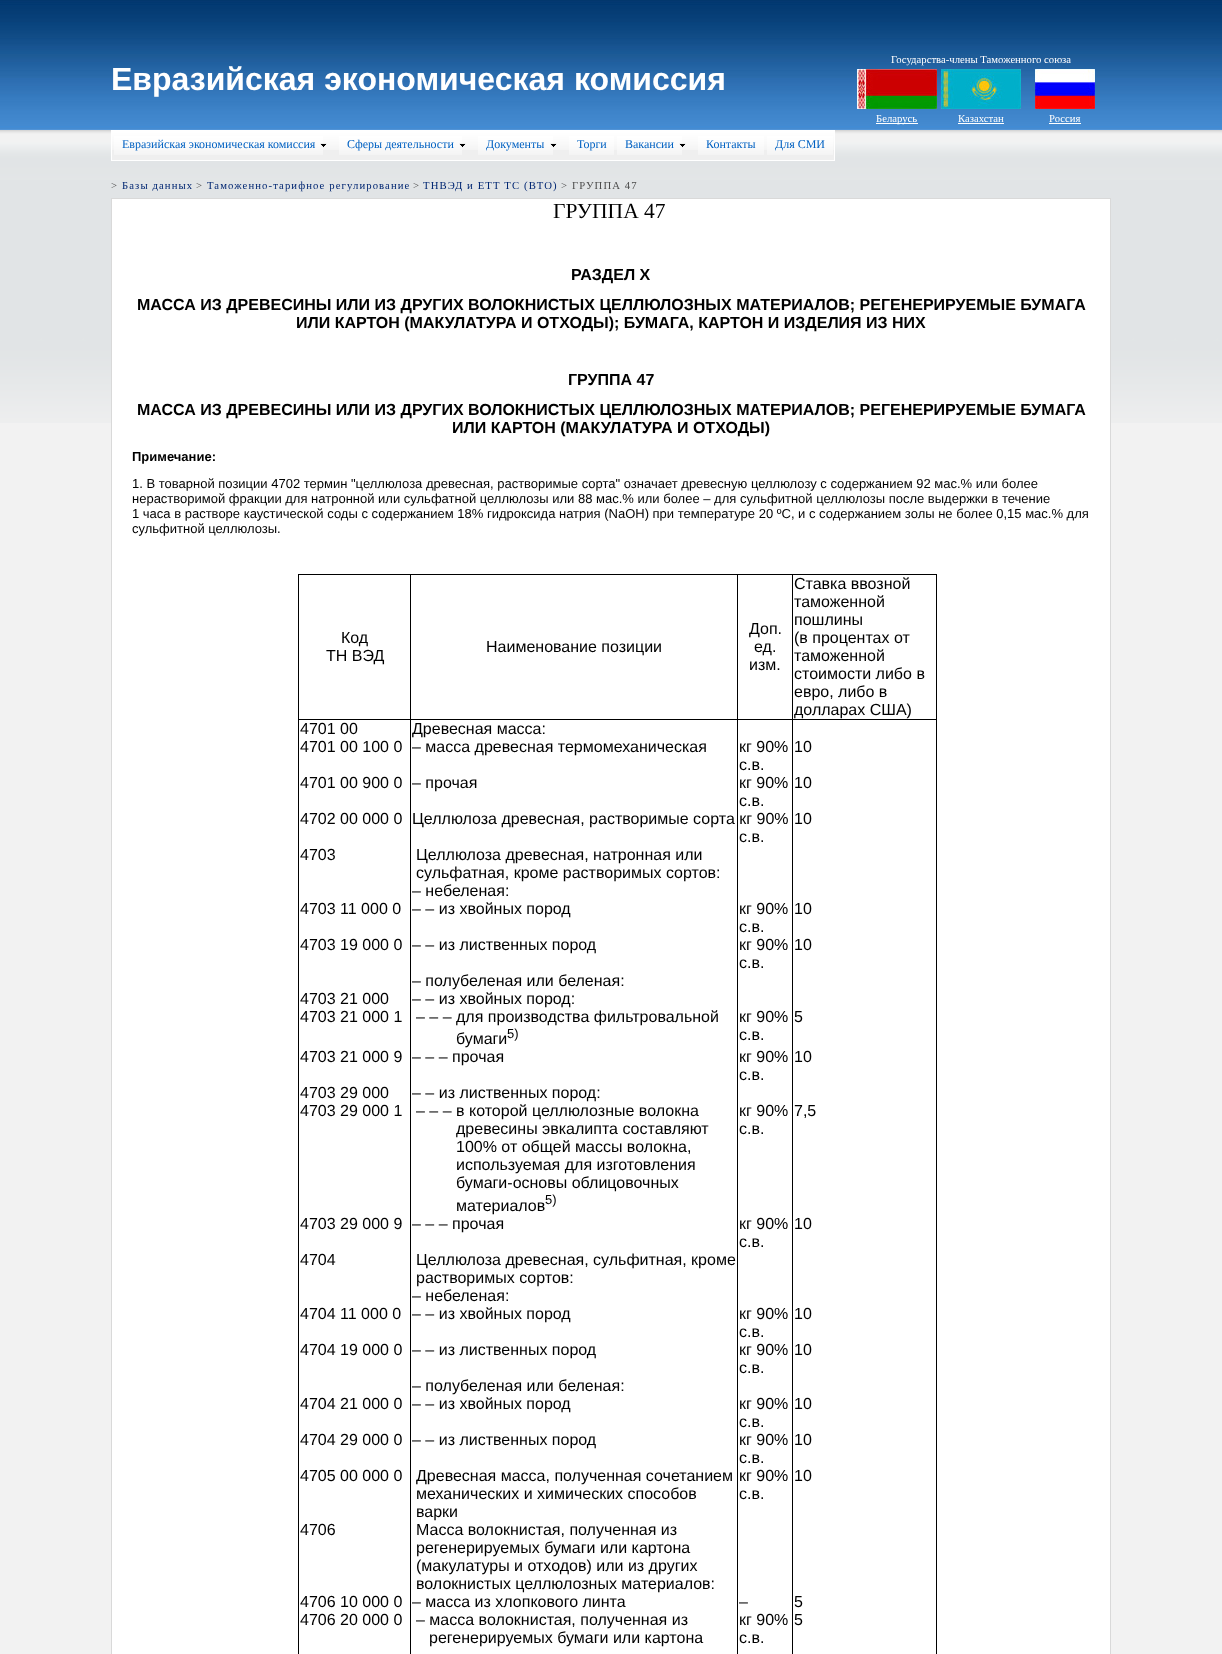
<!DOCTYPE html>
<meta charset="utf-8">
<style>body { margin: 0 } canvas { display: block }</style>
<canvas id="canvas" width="1222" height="1654"></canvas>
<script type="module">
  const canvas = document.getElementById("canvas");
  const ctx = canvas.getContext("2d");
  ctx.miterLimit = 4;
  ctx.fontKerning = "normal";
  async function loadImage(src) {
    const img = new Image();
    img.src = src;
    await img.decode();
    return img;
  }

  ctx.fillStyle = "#ffffff";
  ctx.fillRect(0, 0, 1222, 1654);
  ctx.drawImage(await loadImage("img1.png"), 0, 0, 1222, 130);
  ctx.font = "bold 32px Liberation Sans";
  ctx.fillText("Евразийская экономическая комиссия", 111, 90);
  ctx.font = "10.7px Liberation Serif";
  ctx.fillText("Государства-члены Таможенного союза", 891, 63);
  ctx.drawImage(await loadImage("img2.png"), 857, 69, 80, 40);
  ctx.drawImage(await loadImage("img3.png"), 941, 69, 80, 40);
  ctx.drawImage(await loadImage("img4.png"), 1035, 69, 60, 40);
  ctx.fillRect(876, 123, 42, 1);
  ctx.fillText("Беларусь", 876, 122);
  ctx.fillText("Казахстан", 958, 122);
  ctx.fillRect(958, 123, 46, 1);
  ctx.fillText("Россия", 1049, 122);
  ctx.fillRect(1049, 123, 32, 1);
  ctx.drawImage(await loadImage("img5.png"), 0, 130, 1222, 50);
  ctx.strokeStyle = "#ffffff";
  ctx.strokeRect(111.5, 130.5, 723, 30);
  ctx.fillStyle = "#efefef";
  ctx.fillRect(112, 150, 722, 10);
  ctx.drawImage(await loadImage("img6.png"), 112, 131, 225, 19);
  ctx.drawImage(await loadImage("img7.png"), 114, 136, 209, 19);
  ctx.font = "12px Liberation Serif";
  ctx.fillStyle = "#0161c2";
  ctx.fillText("Евразийская экономическая комиссия", 122, 148);
  ctx.drawImage(await loadImage("img8.png"), 320, 143, 7, 5);
  ctx.drawImage(await loadImage("img9.png"), 337, 131, 139, 19);
  ctx.drawImage(await loadImage("img10.png"), 339, 136, 123, 19);
  ctx.fillText("Сферы деятельности", 347, 148);
  ctx.drawImage(await loadImage("img8.png"), 459, 143, 7, 5);
  ctx.drawImage(await loadImage("img11.png"), 476, 131, 91, 19);
  ctx.drawImage(await loadImage("img12.png"), 478, 136, 75, 19);
  ctx.fillText("Документы", 486, 148);
  ctx.drawImage(await loadImage("img8.png"), 550, 143, 7, 5);
  ctx.drawImage(await loadImage("img13.png"), 567, 131, 48, 19);
  ctx.drawImage(await loadImage("img14.png"), 569, 136, 45, 19);
  ctx.fillText("Торги", 577, 148);
  ctx.drawImage(await loadImage("img15.png"), 615, 131, 81, 19);
  ctx.drawImage(await loadImage("img16.png"), 617, 136, 65, 19);
  ctx.fillText("Вакансии", 625, 148);
  ctx.drawImage(await loadImage("img8.png"), 679, 143, 7, 5);
  ctx.drawImage(await loadImage("img17.png"), 696, 131, 69, 19);
  ctx.drawImage(await loadImage("img18.png"), 698, 136, 66, 19);
  ctx.fillText("Контакты", 706, 148);
  ctx.drawImage(await loadImage("img17.png"), 765, 131, 69, 19);
  ctx.drawImage(await loadImage("img18.png"), 767, 136, 66, 19);
  ctx.fillText("Для СМИ", 775, 148);
  ctx.fillStyle = "#f2f2f2";
  ctx.fillRect(0, 423, 1222, 1231);
  ctx.drawImage(await loadImage("img19.png"), 0, 180, 1222, 243);
  ctx.letterSpacing = "1.1px";
  ctx.font = "10.7px Liberation Serif";
  ctx.fillStyle = "#4c4c4c";
  ctx.fillText(">", 111, 189);
  ctx.fillStyle = "#002672";
  ctx.fillText("Базы данных", 122, 189);
  ctx.fillStyle = "#4c4c4c";
  ctx.fillText(">", 196, 189);
  ctx.fillStyle = "#002672";
  ctx.fillText("Таможенно-тарифное регулирование", 207, 189);
  ctx.fillStyle = "#4c4c4c";
  ctx.fillText(">", 413, 189);
  ctx.fillStyle = "#002672";
  ctx.fillText("ТНВЭД и ЕТТ ТС (ВТО)", 423, 189);
  ctx.fillStyle = "#4c4c4c";
  ctx.fillText("> ГРУППА 47", 561, 189);
  ctx.fillStyle = "#ffffff";
  ctx.fillRect(112, 199, 998, 1455);
  ctx.fillStyle = "#d9d9d9";
  ctx.fillRect(111, 198, 1000, 1);
  ctx.fillRect(1110, 198, 1, 1456);
  ctx.fillRect(111, 198, 1, 1456);
  ctx.letterSpacing = "0px";
  ctx.font = "21.5px Liberation Serif";
  ctx.fillStyle = "#000000";
  ctx.fillText("ГРУППА 47", 553, 218);
  ctx.font = "bold 16px Liberation Sans";
  ctx.fillText("РАЗДЕЛ X", 571, 280);
  ctx.fillText("МАССА ИЗ ДРЕВЕСИНЫ ИЛИ ИЗ ДРУГИХ ВОЛОКНИСТЫХ ЦЕЛЛЮЛОЗHЫХ МАТЕРИАЛОВ; РЕГЕНЕРИРУЕМЫЕ БУМАГА", 137, 310);
  ctx.fillText("ИЛИ КАРТОН (МАКУЛАТУРА И ОТХОДЫ); БУМАГА, КАРТОН И ИЗДЕЛИЯ ИЗ НИХ", 296, 328);
  ctx.fillText("ГРУППА 47", 568, 385);
  ctx.fillText("МАССА ИЗ ДРЕВЕСИНЫ ИЛИ ИЗ ДРУГИХ ВОЛОКНИСТЫХ ЦЕЛЛЮЛОЗHЫХ МАТЕРИАЛОВ; РЕГЕНЕРИРУЕМЫЕ БУМАГА", 137, 415);
  ctx.fillText("ИЛИ КАРТОH (МАКУЛАТУРА И ОТХОДЫ)", 452, 433);
  ctx.font = "bold 13px Liberation Sans";
  ctx.fillText("Примечание:", 132, 461);
  ctx.font = "13px Liberation Sans";
  ctx.fillText("1. В товарной позиции 4702 термин \"целлюлоза древесная, растворимые сорта\" означает древесную целлюлозу с содержанием 92 мас.% или более", 132, 488);
  ctx.fillText("нерастворимой фракции для натронной или сульфатной целлюлозы или 88 мас.% или более – для сульфитной целлюлозы после выдержки в течение", 132, 503);
  ctx.fillText("1 часа в растворе каустической соды с содержанием 18% гидроксида натрия (NaOH) при температуре 20 ºС, и с содержанием золы не более 0,15 мас.% для", 132, 518);
  ctx.fillText("сульфитной целлюлозы.", 132, 533);
  ctx.fillRect(298, 574, 639, 1);
  ctx.fillRect(936, 719, 1, 935);
  ctx.fillRect(936, 574, 1, 146);
  ctx.fillRect(792, 719, 1, 935);
  ctx.fillRect(792, 719, 145, 1);
  ctx.fillRect(792, 574, 1, 146);
  ctx.fillRect(737, 719, 1, 935);
  ctx.fillRect(737, 719, 56, 1);
  ctx.fillRect(737, 574, 1, 146);
  ctx.fillRect(410, 719, 1, 935);
  ctx.fillRect(410, 719, 328, 1);
  ctx.fillRect(410, 574, 1, 146);
  ctx.fillRect(298, 719, 1, 935);
  ctx.fillRect(298, 719, 113, 1);
  ctx.fillRect(298, 574, 1, 146);
  ctx.font = "16px Liberation Sans";
  ctx.fillText("Код", 341, 643);
  ctx.fillText("ТН ВЭД", 326, 661);
  ctx.fillText("Наименование позиции", 486, 652);
  ctx.fillText("Доп.", 749, 634);
  ctx.fillText("ед.", 754, 652);
  ctx.fillText("изм.", 749, 670);
  ctx.fillText("Ставка ввозной", 794, 589);
  ctx.fillText("таможенной", 794, 607);
  ctx.fillText("пошлины", 794, 625);
  ctx.fillText("(в процентах от", 794, 643);
  ctx.fillText("таможенной", 794, 661);
  ctx.fillText("стоимости либо в", 794, 679);
  ctx.fillText("евро, либо в", 794, 697);
  ctx.fillText("долларах США)", 794, 715);
  ctx.fillText("4701 00", 300, 734);
  ctx.fillText("Древесная масса:", 412, 734);
  ctx.fillText("4701 00 100 0", 300, 752);
  ctx.fillText("– масса древесная термомеханическая", 412, 752);
  ctx.fillText("кг 90%", 739, 752);
  ctx.fillText("с.в.", 739, 770);
  ctx.fillText("10", 794, 752);
  ctx.fillText("4701 00 900 0", 300, 788);
  ctx.fillText("– прочая", 412, 788);
  ctx.fillText("кг 90%", 739, 788);
  ctx.fillText("с.в.", 739, 806);
  ctx.fillText("10", 794, 788);
  ctx.fillText("4702 00 000 0", 300, 824);
  ctx.fillText("Целлюлоза древесная, растворимые сорта кг 90%", 412, 824);
  ctx.fillText("10", 794, 824);
  ctx.fillText("с.в.", 739, 842);
  ctx.fillText("4703", 300, 860);
  ctx.fillText("Целлюлоза древесная, натронная или", 416, 860);
  ctx.fillText("сульфатная, кроме растворимых сортов:", 416, 878);
  ctx.fillText("– небеленая:", 412, 896);
  ctx.fillText("4703 11 000 0", 300, 914);
  ctx.fillText("– – из хвойных пород", 412, 914);
  ctx.fillText("кг 90%", 739, 914);
  ctx.fillText("с.в.", 739, 932);
  ctx.fillText("10", 794, 914);
  ctx.fillText("4703 19 000 0", 300, 950);
  ctx.fillText("– – из лиственных пород", 412, 950);
  ctx.fillText("кг 90%", 739, 950);
  ctx.fillText("с.в.", 739, 968);
  ctx.fillText("10", 794, 950);
  ctx.fillText("– полубеленая или беленая:", 412, 986);
  ctx.fillText("4703 21 000", 300, 1004);
  ctx.fillText("– – из хвойных пород:", 412, 1004);
  ctx.fillText("4703 21 000 1", 300, 1022);
  ctx.fillText("– – – для производства фильтровальной", 416, 1022);
  ctx.fillText("бумаги", 456, 1044);
  ctx.font = "13px Liberation Sans";
  ctx.fillText("5)", 507, 1038);
  ctx.font = "16px Liberation Sans";
  ctx.fillText("кг 90%", 739, 1022);
  ctx.fillText("с.в.", 739, 1040);
  ctx.fillText("5", 794, 1022);
  ctx.fillText("4703 21 000 9", 300, 1062);
  ctx.fillText("– – – прочая", 412, 1062);
  ctx.fillText("кг 90%", 739, 1062);
  ctx.fillText("с.в.", 739, 1080);
  ctx.fillText("10", 794, 1062);
  ctx.fillText("4703 29 000", 300, 1098);
  ctx.fillText("– – из лиственных пород:", 412, 1098);
  ctx.fillText("4703 29 000 1", 300, 1116);
  ctx.fillText("– – – в которой целлюлозные волокна", 416, 1116);
  ctx.fillText("древесины эвкалипта составляют", 456, 1134);
  ctx.fillText("100% от общей массы волокна,", 456, 1152);
  ctx.fillText("используемая для изготовления", 456, 1170);
  ctx.fillText("бумаги-основы облицовочных", 456, 1188);
  ctx.font = "13px Liberation Sans";
  ctx.fillText("5)", 545, 1204);
  ctx.font = "16px Liberation Sans";
  ctx.fillText("материалов", 456, 1211);
  ctx.fillText("кг 90%", 739, 1116);
  ctx.fillText("с.в.", 739, 1134);
  ctx.fillText("7,5", 794, 1116);
  ctx.fillText("4703 29 000 9", 300, 1229);
  ctx.fillText("– – – прочая", 412, 1229);
  ctx.fillText("кг 90%", 739, 1229);
  ctx.fillText("с.в.", 739, 1247);
  ctx.fillText("10", 794, 1229);
  ctx.fillText("4704", 300, 1265);
  ctx.fillText("Целлюлоза древесная, сульфитная, кроме", 416, 1265);
  ctx.fillText("растворимых сортов:", 416, 1283);
  ctx.fillText("– небеленая:", 412, 1301);
  ctx.fillText("4704 11 000 0", 300, 1319);
  ctx.fillText("– – из хвойных пород", 412, 1319);
  ctx.fillText("кг 90%", 739, 1319);
  ctx.fillText("с.в.", 739, 1337);
  ctx.fillText("10", 794, 1319);
  ctx.fillText("4704 19 000 0", 300, 1355);
  ctx.fillText("– – из лиственных пород", 412, 1355);
  ctx.fillText("кг 90%", 739, 1355);
  ctx.fillText("с.в.", 739, 1373);
  ctx.fillText("10", 794, 1355);
  ctx.fillText("– полубеленая или беленая:", 412, 1391);
  ctx.fillText("4704 21 000 0", 300, 1409);
  ctx.fillText("– – из хвойных пород", 412, 1409);
  ctx.fillText("кг 90%", 739, 1409);
  ctx.fillText("с.в.", 739, 1427);
  ctx.fillText("10", 794, 1409);
  ctx.fillText("4704 29 000 0", 300, 1445);
  ctx.fillText("– – из лиственных пород", 412, 1445);
  ctx.fillText("кг 90%", 739, 1445);
  ctx.fillText("с.в.", 739, 1463);
  ctx.fillText("10", 794, 1445);
  ctx.fillText("4705 00 000 0", 300, 1481);
  ctx.fillText("Древесная масса, полученная сочетанием", 416, 1481);
  ctx.fillText("механических и химических способов", 416, 1499);
  ctx.fillText("варки", 416, 1517);
  ctx.fillText("кг 90%", 739, 1481);
  ctx.fillText("с.в.", 739, 1499);
  ctx.fillText("10", 794, 1481);
  ctx.fillText("4706", 300, 1535);
  ctx.fillText("Масса волокнистая, полученная из", 416, 1535);
  ctx.fillText("регенерируемых бумаги или картона", 416, 1553);
  ctx.fillText("(макулатуры и отходов) или из других", 416, 1571);
  ctx.fillText("волокнистых целлюлозных материалов:", 416, 1589);
  ctx.fillText("4706 10 000 0", 300, 1607);
  ctx.fillText("– масса из хлопкового линта", 412, 1607);
  ctx.fillText("–", 739, 1607);
  ctx.fillText("5", 794, 1607);
  ctx.fillText("4706 20 000 0", 300, 1625);
  ctx.fillText("– масса волокнистая, полученная из", 416, 1625);
  ctx.fillText("регенерируемых бумаги или картона", 429, 1643);
  ctx.fillText("кг 90%", 739, 1625);
  ctx.fillText("с.в.", 739, 1643);
  ctx.fillText("5", 794, 1625);
</script>
